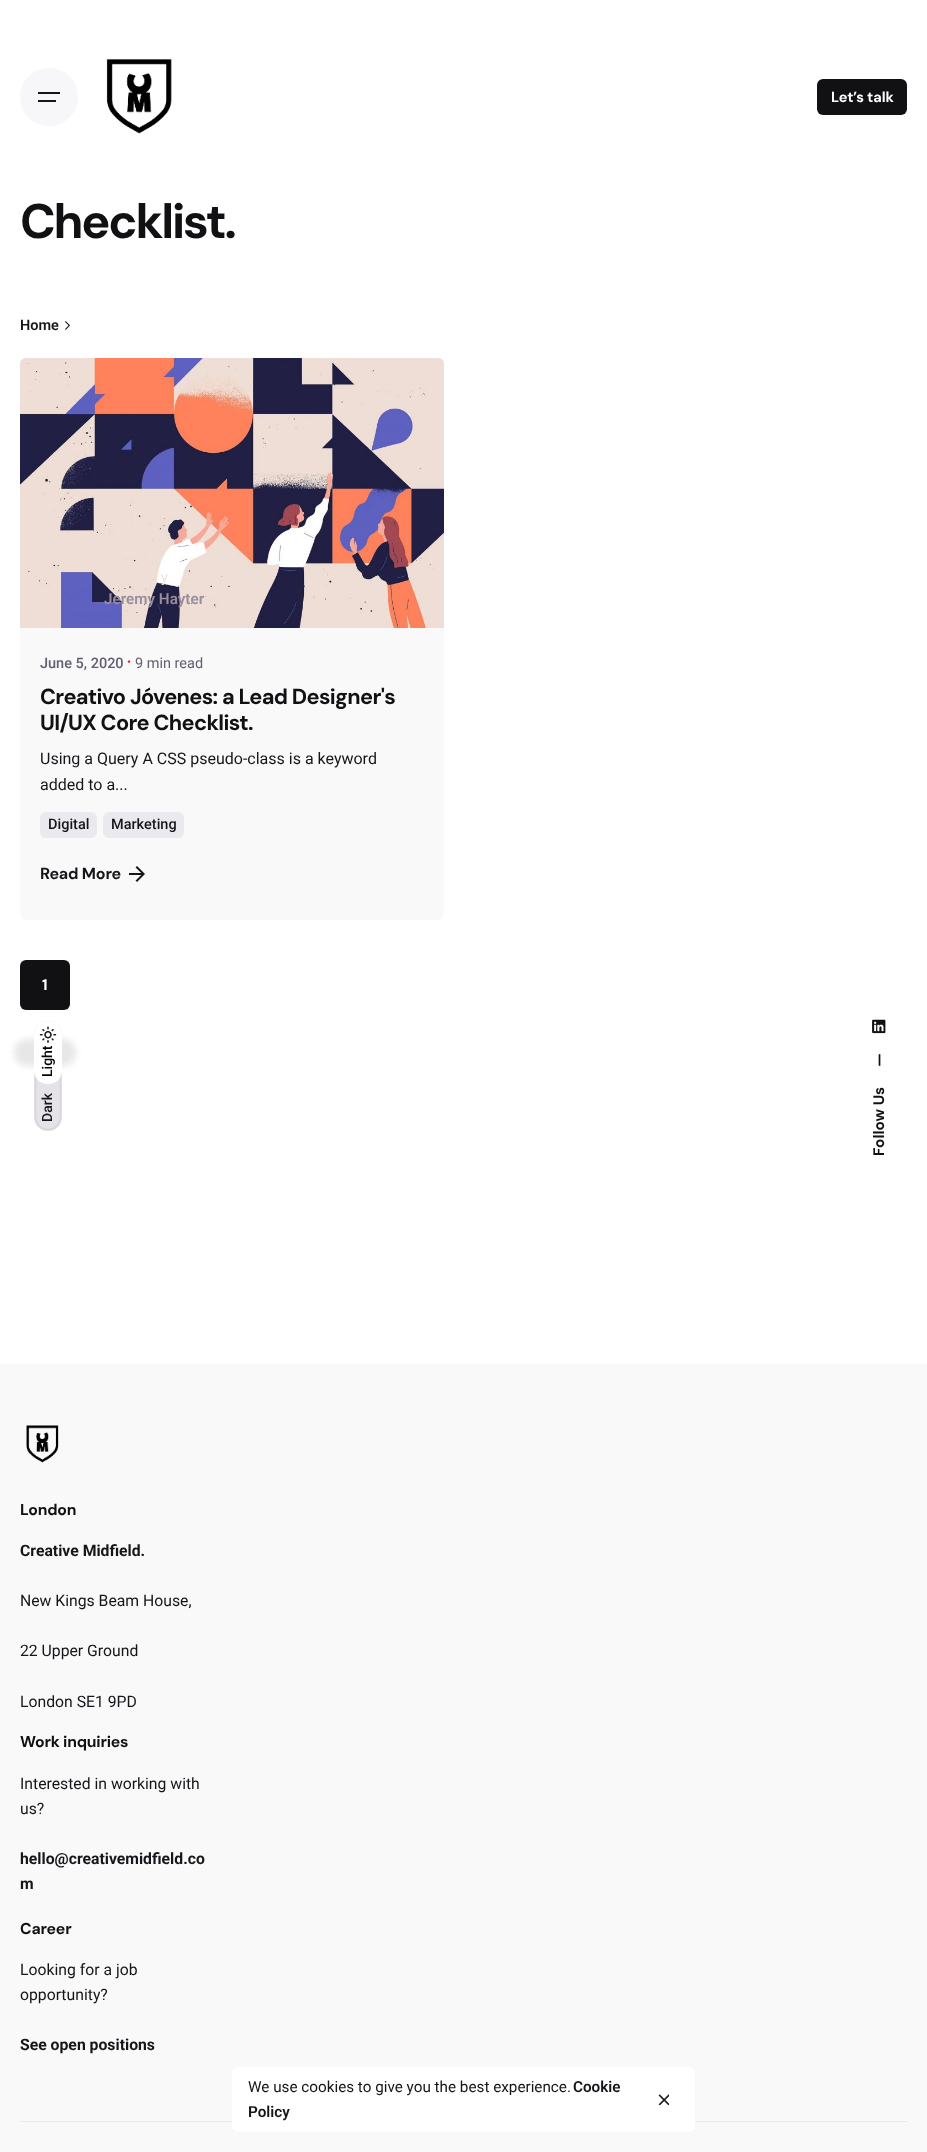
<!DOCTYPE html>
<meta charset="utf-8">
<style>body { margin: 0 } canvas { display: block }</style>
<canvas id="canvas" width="927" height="2152"></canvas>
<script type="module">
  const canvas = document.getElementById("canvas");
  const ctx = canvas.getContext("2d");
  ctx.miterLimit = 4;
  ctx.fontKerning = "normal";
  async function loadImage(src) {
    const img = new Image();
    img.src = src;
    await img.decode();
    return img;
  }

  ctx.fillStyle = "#ffffff";
  ctx.fillRect(0, 0, 927, 2152);
  ctx.fillStyle = "#f7f6f8";
  ctx.beginPath();
  ctx.arc(49, 97, 29, 0, Math.PI * 2);
  ctx.fill();
  ctx.fillStyle = "#161519";
  ctx.fillRect(38, 92, 22, 2);
  ctx.fillRect(38, 100, 18, 2);
  ctx.drawImage(await loadImage("img1.png"), 106, 59, 66, 75);
  ctx.fillStyle = "#111013";
  ctx.beginPath();
  ctx.roundRect(817, 79, 90, 36, 6);
  ctx.fill();
  ctx.letterSpacing = "-0.1px";
  ctx.font = "bold 14.5px DM Sans";
  ctx.fillStyle = "#ffffff";
  ctx.fillText("Let’s talk", 831, 102);
  ctx.letterSpacing = "-2.25px";
  ctx.font = "bold 48.5px DM Sans";
  ctx.fillStyle = "#111013";
  ctx.fillText("Checklist.", 20, 238);
  ctx.letterSpacing = "0px";
  ctx.font = "600 14.5px Roboto";
  ctx.fillStyle = "#161519";
  ctx.fillText("Home", 20, 330);
  ctx.drawImage(await loadImage("img2.png"), 65, 321, 5, 9);
  ctx.drawImage(await loadImage("img3.png"), 20, 358, 424, 270);
  ctx.font = "14.5px Roboto";
  ctx.fillStyle = "#efe1da";
  ctx.fillText("y", 161, 582);
  ctx.font = "600 15.25px Roboto";
  ctx.fillStyle = "#988e9c";
  ctx.fillText("Jeremy Hayter", 104, 604);
  ctx.fillStyle = "#f9f9fa";
  ctx.beginPath();
  ctx.roundRect(20, 628, 424, 292, [0, 0, 6, 6]);
  ctx.fill();
  ctx.font = "500 14.5px Roboto";
  ctx.fillStyle = "#635d6f";
  ctx.fillText("June 5, 2020", 40, 668);
  ctx.font = "12px Roboto";
  ctx.fillStyle = "#dc2828";
  ctx.fillText("•", 127, 666);
  ctx.font = "14.5px Roboto";
  ctx.fillStyle = "#635d6f";
  ctx.fillText("9 min read", 135, 668);
  ctx.letterSpacing = "-0.65px";
  ctx.font = "bold 21.7px DM Sans";
  ctx.fillStyle = "#111013";
  ctx.fillText("Creativo Jóvenes: a Lead Designer's", 40, 704);
  ctx.fillText("UI/UX Core Checklist.", 40, 730);
  ctx.letterSpacing = "0px";
  ctx.font = "16px Roboto";
  ctx.fillStyle = "#161519";
  ctx.fillText("Using a Query A CSS pseudo-class is a keyword", 40, 764);
  ctx.fillText("added to a...", 40, 790);
  ctx.fillStyle = "#eae9ed";
  ctx.beginPath();
  ctx.roundRect(40, 812, 57, 26, 6);
  ctx.fill();
  ctx.font = "500 14.5px Roboto";
  ctx.fillStyle = "#161519";
  ctx.fillText("Digital", 48, 829);
  ctx.fillStyle = "#eae9ed";
  ctx.beginPath();
  ctx.roundRect(103, 812, 81, 26, 6);
  ctx.fill();
  ctx.fillStyle = "#161519";
  ctx.fillText("Marketing", 111, 829);
  ctx.letterSpacing = "-0.2px";
  ctx.font = "bold 16px DM Sans";
  ctx.fillText("Read More", 40, 879);
  ctx.drawImage(await loadImage("img4.png"), 129, 866, 16, 16);
  ctx.fillStyle = "#111013";
  ctx.beginPath();
  ctx.roundRect(20, 960, 50, 50, 6);
  ctx.fill();
  ctx.letterSpacing = "0px";
  ctx.font = "bold 15.25px DM Sans";
  ctx.fillStyle = "#ffffff";
  ctx.fillText("1", 42, 990);
  ctx.fillStyle = "#faf9fa";
  ctx.fillRect(0, 1364, 927, 788);
  ctx.drawImage(await loadImage("img5.png"), 26, 1425, 33, 38);
  ctx.letterSpacing = "-0.2px";
  ctx.font = "bold 15.75px DM Sans";
  ctx.fillStyle = "#111013";
  ctx.fillText("London", 20, 1515);
  ctx.letterSpacing = "0px";
  ctx.font = "bold 15.75px Roboto";
  ctx.fillStyle = "#161519";
  ctx.fillText("Creative Midfield.", 20, 1556);
  ctx.font = "15.75px Roboto";
  ctx.fillText("New Kings Beam House,", 20, 1606);
  ctx.fillText("22 Upper Ground", 20, 1656);
  ctx.fillText("London SE1 9PD", 20, 1707);
  ctx.letterSpacing = "-0.2px";
  ctx.font = "bold 15.75px DM Sans";
  ctx.fillStyle = "#111013";
  ctx.fillText("Work inquiries", 20, 1747);
  ctx.letterSpacing = "0px";
  ctx.font = "15.75px Roboto";
  ctx.fillStyle = "#161519";
  ctx.fillText("Interested in working with", 20, 1789);
  ctx.fillText("us?", 20, 1814);
  ctx.font = "bold 15.75px Roboto";
  ctx.fillText("hello@creativemidfield.co", 20, 1864);
  ctx.fillText("m", 20, 1889);
  ctx.letterSpacing = "-0.2px";
  ctx.font = "bold 15.75px DM Sans";
  ctx.fillStyle = "#111013";
  ctx.fillText("Career", 20, 1934);
  ctx.letterSpacing = "0px";
  ctx.font = "15.75px Roboto";
  ctx.fillStyle = "#161519";
  ctx.fillText("Looking for a job", 20, 1975);
  ctx.fillText("opportunity?", 20, 2000);
  ctx.font = "bold 15.75px Roboto";
  ctx.fillText("See open positions", 20, 2050);
  ctx.fillStyle = "#ebe9ed";
  ctx.fillRect(20, 2121, 887, 1);
  ctx.fillStyle = "#e5e3e8";
  ctx.beginPath();
  ctx.moveTo(34, 1117);
  ctx.lineTo(34, 1035);
  ctx.bezierCurveTo(34, 1027, 40, 1021, 48, 1021);
  ctx.bezierCurveTo(56, 1021, 62, 1027, 62, 1035);
  ctx.lineTo(62, 1117);
  ctx.bezierCurveTo(62, 1125, 56, 1131, 48, 1131);
  ctx.bezierCurveTo(40, 1131, 34, 1125, 34, 1117);
  ctx.closePath();
  ctx.fill();
  ctx.beginPath();
  ctx.moveTo(35.5, 1117);
  ctx.lineTo(35.5, 1035);
  ctx.bezierCurveTo(35.5, 1028, 41, 1022.5, 48, 1022.5);
  ctx.bezierCurveTo(55, 1022.5, 60.5, 1028, 60.5, 1035);
  ctx.lineTo(60.5, 1117);
  ctx.bezierCurveTo(60.5, 1124, 55, 1129.5, 48, 1129.5);
  ctx.bezierCurveTo(41, 1129.5, 35.5, 1124, 35.5, 1117);
  ctx.closePath();
  ctx.strokeStyle = "#d9d7de";
  ctx.lineWidth = 2;
  ctx.stroke();
  ctx.fillStyle = "rgba(17, 16, 19, 0.05)";
  ctx.filter = "blur(3px)";
  ctx.beginPath();
  ctx.roundRect(14, 1039, 62, 27, 13.5);
  ctx.fill();
  ctx.filter = "none";
  ctx.filter = "blur(3px)";
  ctx.beginPath();
  ctx.roundRect(14, 1039, 62, 27, 13.5);
  ctx.fill();
  ctx.filter = "none";
  ctx.fillStyle = "#ffffff";
  ctx.beginPath();
  ctx.moveTo(34, 1071);
  ctx.lineTo(34, 1035);
  ctx.bezierCurveTo(34, 1027, 40, 1021, 48, 1021);
  ctx.bezierCurveTo(56, 1021, 62, 1027, 62, 1035);
  ctx.lineTo(62, 1071);
  ctx.bezierCurveTo(62, 1078, 56, 1084, 48, 1084);
  ctx.bezierCurveTo(40, 1084, 34, 1078, 34, 1071);
  ctx.closePath();
  ctx.fill();
  ctx.drawImage(await loadImage("img6.png"), 39, 1026, 18, 17);
  ctx.font = "500 14px Roboto";
  ctx.fillStyle = "#000000";
  ctx.save();
  ctx.translate(52, 1077);
  ctx.rotate(-90 * Math.PI / 180);
  ctx.fillText("Light", 0, 0);
  ctx.restore();
  ctx.fillStyle = "#161519";
  ctx.save();
  ctx.translate(52, 1122);
  ctx.rotate(-90 * Math.PI / 180);
  ctx.fillText("Dark", 0, 0);
  ctx.restore();
  ctx.drawImage(await loadImage("img7.png"), 872, 1019, 14, 15);
  ctx.font = "bold 15.25px DM Sans";
  ctx.fillStyle = "#111013";
  ctx.save();
  ctx.translate(884, 1067);
  ctx.rotate(-90 * Math.PI / 180);
  ctx.fillText("—", 0, 0);
  ctx.restore();
  ctx.save();
  ctx.translate(884, 1156);
  ctx.rotate(-90 * Math.PI / 180);
  ctx.fillText("Follow Us", 0, 0);
  ctx.restore();
  ctx.fillStyle = "#ffffff";
  ctx.beginPath();
  ctx.roundRect(232, 2067, 463, 65, 6);
  ctx.fill();
  ctx.font = "15.25px Roboto";
  ctx.fillStyle = "#161519";
  ctx.fillText("We use cookies to give you the best experience.", 248, 2092);
  ctx.font = "600 15.25px Roboto";
  ctx.fillText("Cookie", 573, 2092);
  ctx.fillText("Policy", 248, 2117);
  ctx.drawImage(await loadImage("img8.png"), 658, 2094, 11, 11);
</script>
